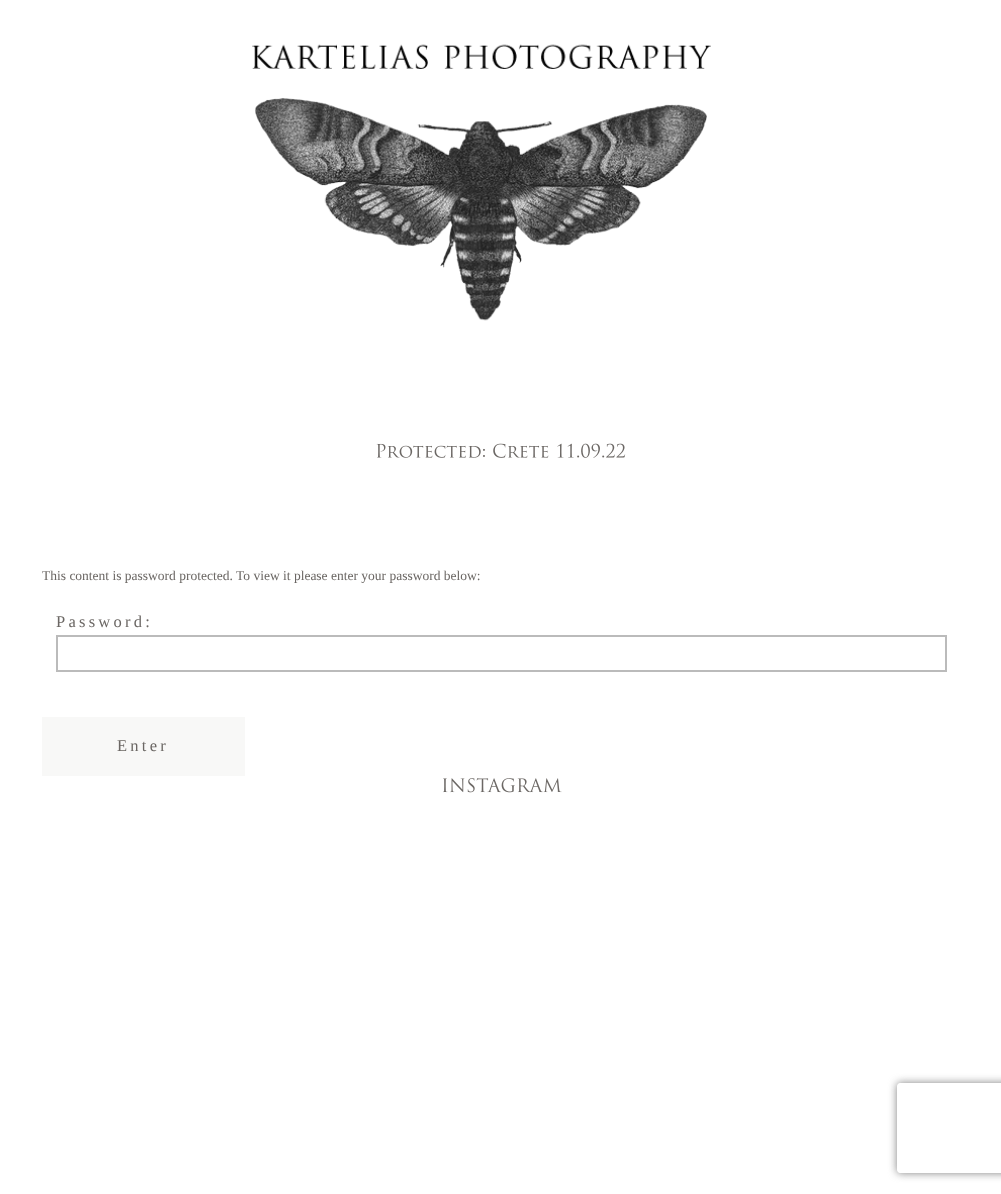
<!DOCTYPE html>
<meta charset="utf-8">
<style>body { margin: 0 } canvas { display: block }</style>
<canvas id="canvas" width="1001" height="1194"></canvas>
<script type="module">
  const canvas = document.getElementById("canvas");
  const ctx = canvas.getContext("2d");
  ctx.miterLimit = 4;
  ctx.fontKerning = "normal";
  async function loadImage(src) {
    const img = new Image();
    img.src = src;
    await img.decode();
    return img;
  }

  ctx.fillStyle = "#ffffff";
  ctx.fillRect(0, 0, 1001, 1194);
  ctx.drawImage(await loadImage("img1.png"), 252, 44, 459, 277);
  ctx.drawImage(await loadImage("img2.png"), 376, 443, 250, 15);
  ctx.font = "13.5px Liberation Serif";
  ctx.fillStyle = "#6b6764";
  ctx.fillText("This content is password protected. To view it please enter your password below:", 42, 580);
  ctx.letterSpacing = "3.25px";
  ctx.font = "16.5px Liberation Serif";
  ctx.fillText("Password:", 56, 627);
  ctx.strokeStyle = "#bbbbbb";
  ctx.lineWidth = 2;
  ctx.strokeRect(57, 636, 889, 35);
  ctx.fillStyle = "#f8f8f7";
  ctx.fillRect(42, 717, 203, 59);
  ctx.fillStyle = "#6b6764";
  ctx.fillText("Enter", 117, 751);
  ctx.drawImage(await loadImage("img3.png"), 443, 778, 119, 15);
  ctx.save();
  ctx.beginPath();
  ctx.moveTo(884, 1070);
  ctx.lineTo(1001, 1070);
  ctx.lineTo(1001, 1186);
  ctx.lineTo(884, 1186);
  ctx.closePath();
  ctx.moveTo(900, 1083);
  ctx.lineTo(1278, 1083);
  ctx.bezierCurveTo(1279.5, 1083, 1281, 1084.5, 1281, 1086);
  ctx.lineTo(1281, 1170);
  ctx.bezierCurveTo(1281, 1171.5, 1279.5, 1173, 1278, 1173);
  ctx.lineTo(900, 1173);
  ctx.bezierCurveTo(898.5, 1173, 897, 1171.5, 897, 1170);
  ctx.lineTo(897, 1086);
  ctx.bezierCurveTo(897, 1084.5, 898.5, 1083, 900, 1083);
  ctx.closePath();
  ctx.clip("evenodd");
  ctx.fillStyle = "#808080";
  ctx.filter = "blur(4px)";
  ctx.beginPath();
  ctx.roundRect(897, 1083, 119, 90, 3);
  ctx.fill();
  ctx.filter = "none";
  ctx.restore();
</script>
